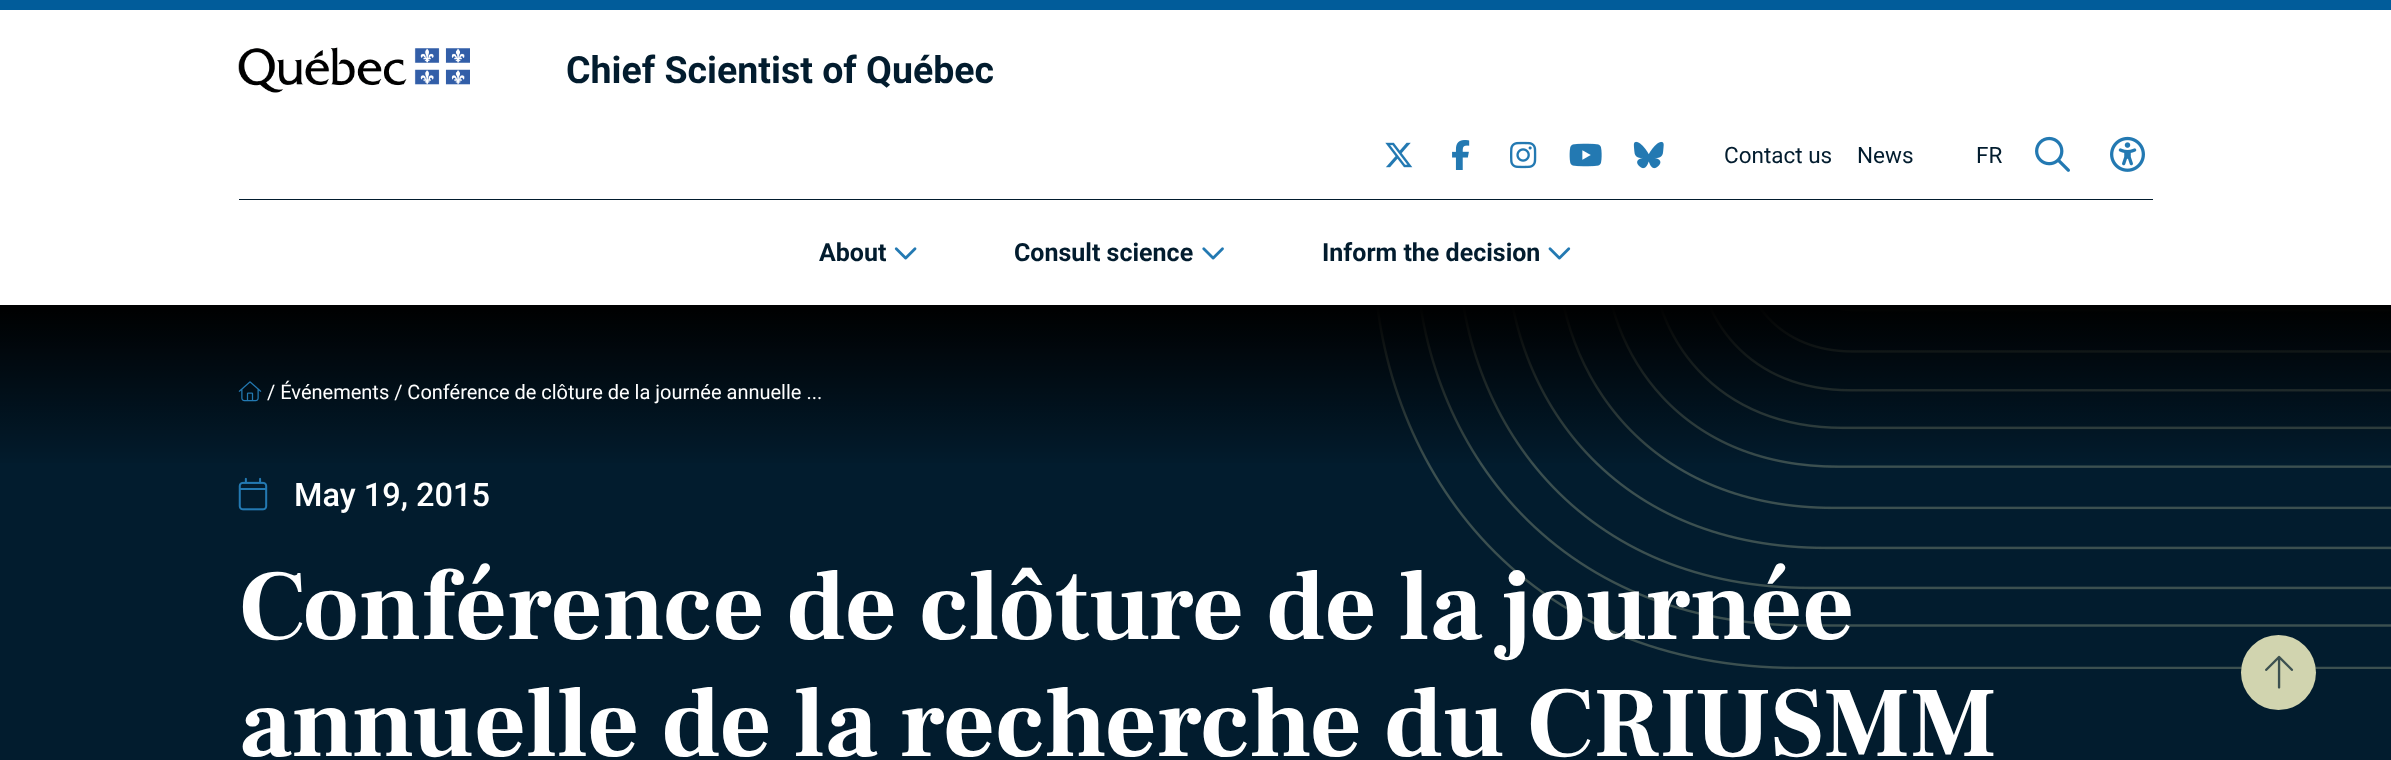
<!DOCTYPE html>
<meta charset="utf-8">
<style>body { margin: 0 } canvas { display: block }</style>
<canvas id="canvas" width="2391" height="760"></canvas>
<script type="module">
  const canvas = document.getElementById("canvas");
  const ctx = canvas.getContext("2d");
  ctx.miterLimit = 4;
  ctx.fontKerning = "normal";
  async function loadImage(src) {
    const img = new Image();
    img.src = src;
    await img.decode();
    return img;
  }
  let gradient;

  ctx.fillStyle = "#021c2e";
  ctx.fillRect(0, 0, 2391, 760);
  ctx.fillStyle = "#015c9a";
  ctx.fillRect(0, 0, 2391, 10);
  ctx.fillStyle = "#ffffff";
  ctx.fillRect(0, 10, 2391, 295);
  ctx.fillStyle = "#021c2e";
  ctx.fillRect(239, 199, 1914, 1);
  ctx.drawImage(await loadImage("img1.png"), 238, 47, 232, 46);
  ctx.font = "bold 37.5px Roboto";
  ctx.fillText("Chief Scientist of Québec", 566, 83);
  ctx.drawImage(await loadImage("img2.png"), 1385, 142, 28, 26);
  ctx.drawImage(await loadImage("img3.png"), 1452, 140, 18, 30);
  ctx.drawImage(await loadImage("img4.png"), 1510, 141, 27, 28);
  ctx.drawImage(await loadImage("img5.png"), 1569, 143, 33, 24);
  ctx.drawImage(await loadImage("img6.png"), 1633, 141, 31, 28);
  ctx.font = "22.5px Roboto";
  ctx.fillText("Contact us", 1724, 163);
  ctx.fillText("News", 1857, 163);
  ctx.fillText("FR", 1976, 163);
  ctx.drawImage(await loadImage("img7.png"), 2035, 136, 35, 36);
  ctx.drawImage(await loadImage("img8.png"), 2110, 136, 35, 36);
  ctx.font = "bold 25px Roboto";
  ctx.fillText("About", 819, 261);
  ctx.drawImage(await loadImage("img9.png"), 894, 247, 23, 13);
  ctx.fillText("Consult science", 1014, 261);
  ctx.drawImage(await loadImage("img10.png"), 1202, 247, 22, 13);
  ctx.fillText("Inform the decision", 1322, 261);
  ctx.drawImage(await loadImage("img11.png"), 1548, 247, 23, 13);
  ctx.drawImage(await loadImage("img12.png"), 1376, 306, 1015, 363);
  gradient = ctx.createLinearGradient(1196, 305, 1196, 468);
  gradient.addColorStop(0, "#000000");
  gradient.addColorStop(1, "rgba(0, 0, 0, 0)");
  ctx.fillStyle = gradient;
  ctx.fillRect(0, 305, 2391, 158);
  ctx.drawImage(await loadImage("img13.png"), 238, 381, 24, 21);
  ctx.font = "20px Roboto";
  ctx.fillStyle = "#ffffff";
  ctx.fillText("/ Événements / Conférence de clôture de la journée annuelle ...", 267, 399);
  ctx.drawImage(await loadImage("img14.png"), 238, 477, 30, 34);
  ctx.font = "500 32.5px Roboto";
  ctx.fillText("May 19, 2015", 294, 506);
  ctx.font = "bold 100px Frank Ruhl Libre";
  ctx.fillText("Conférence de clôture de la journée", 239, 639);
  ctx.fillText("annuelle de la recherche du CRIUSMM", 239, 756);
  ctx.fillStyle = "#d1d4af";
  ctx.beginPath();
  ctx.arc(2278.5, 672.5, 37.5, 0, Math.PI * 2);
  ctx.fill();
  ctx.drawImage(await loadImage("img15.png"), 2265, 655, 29, 34);
</script>
